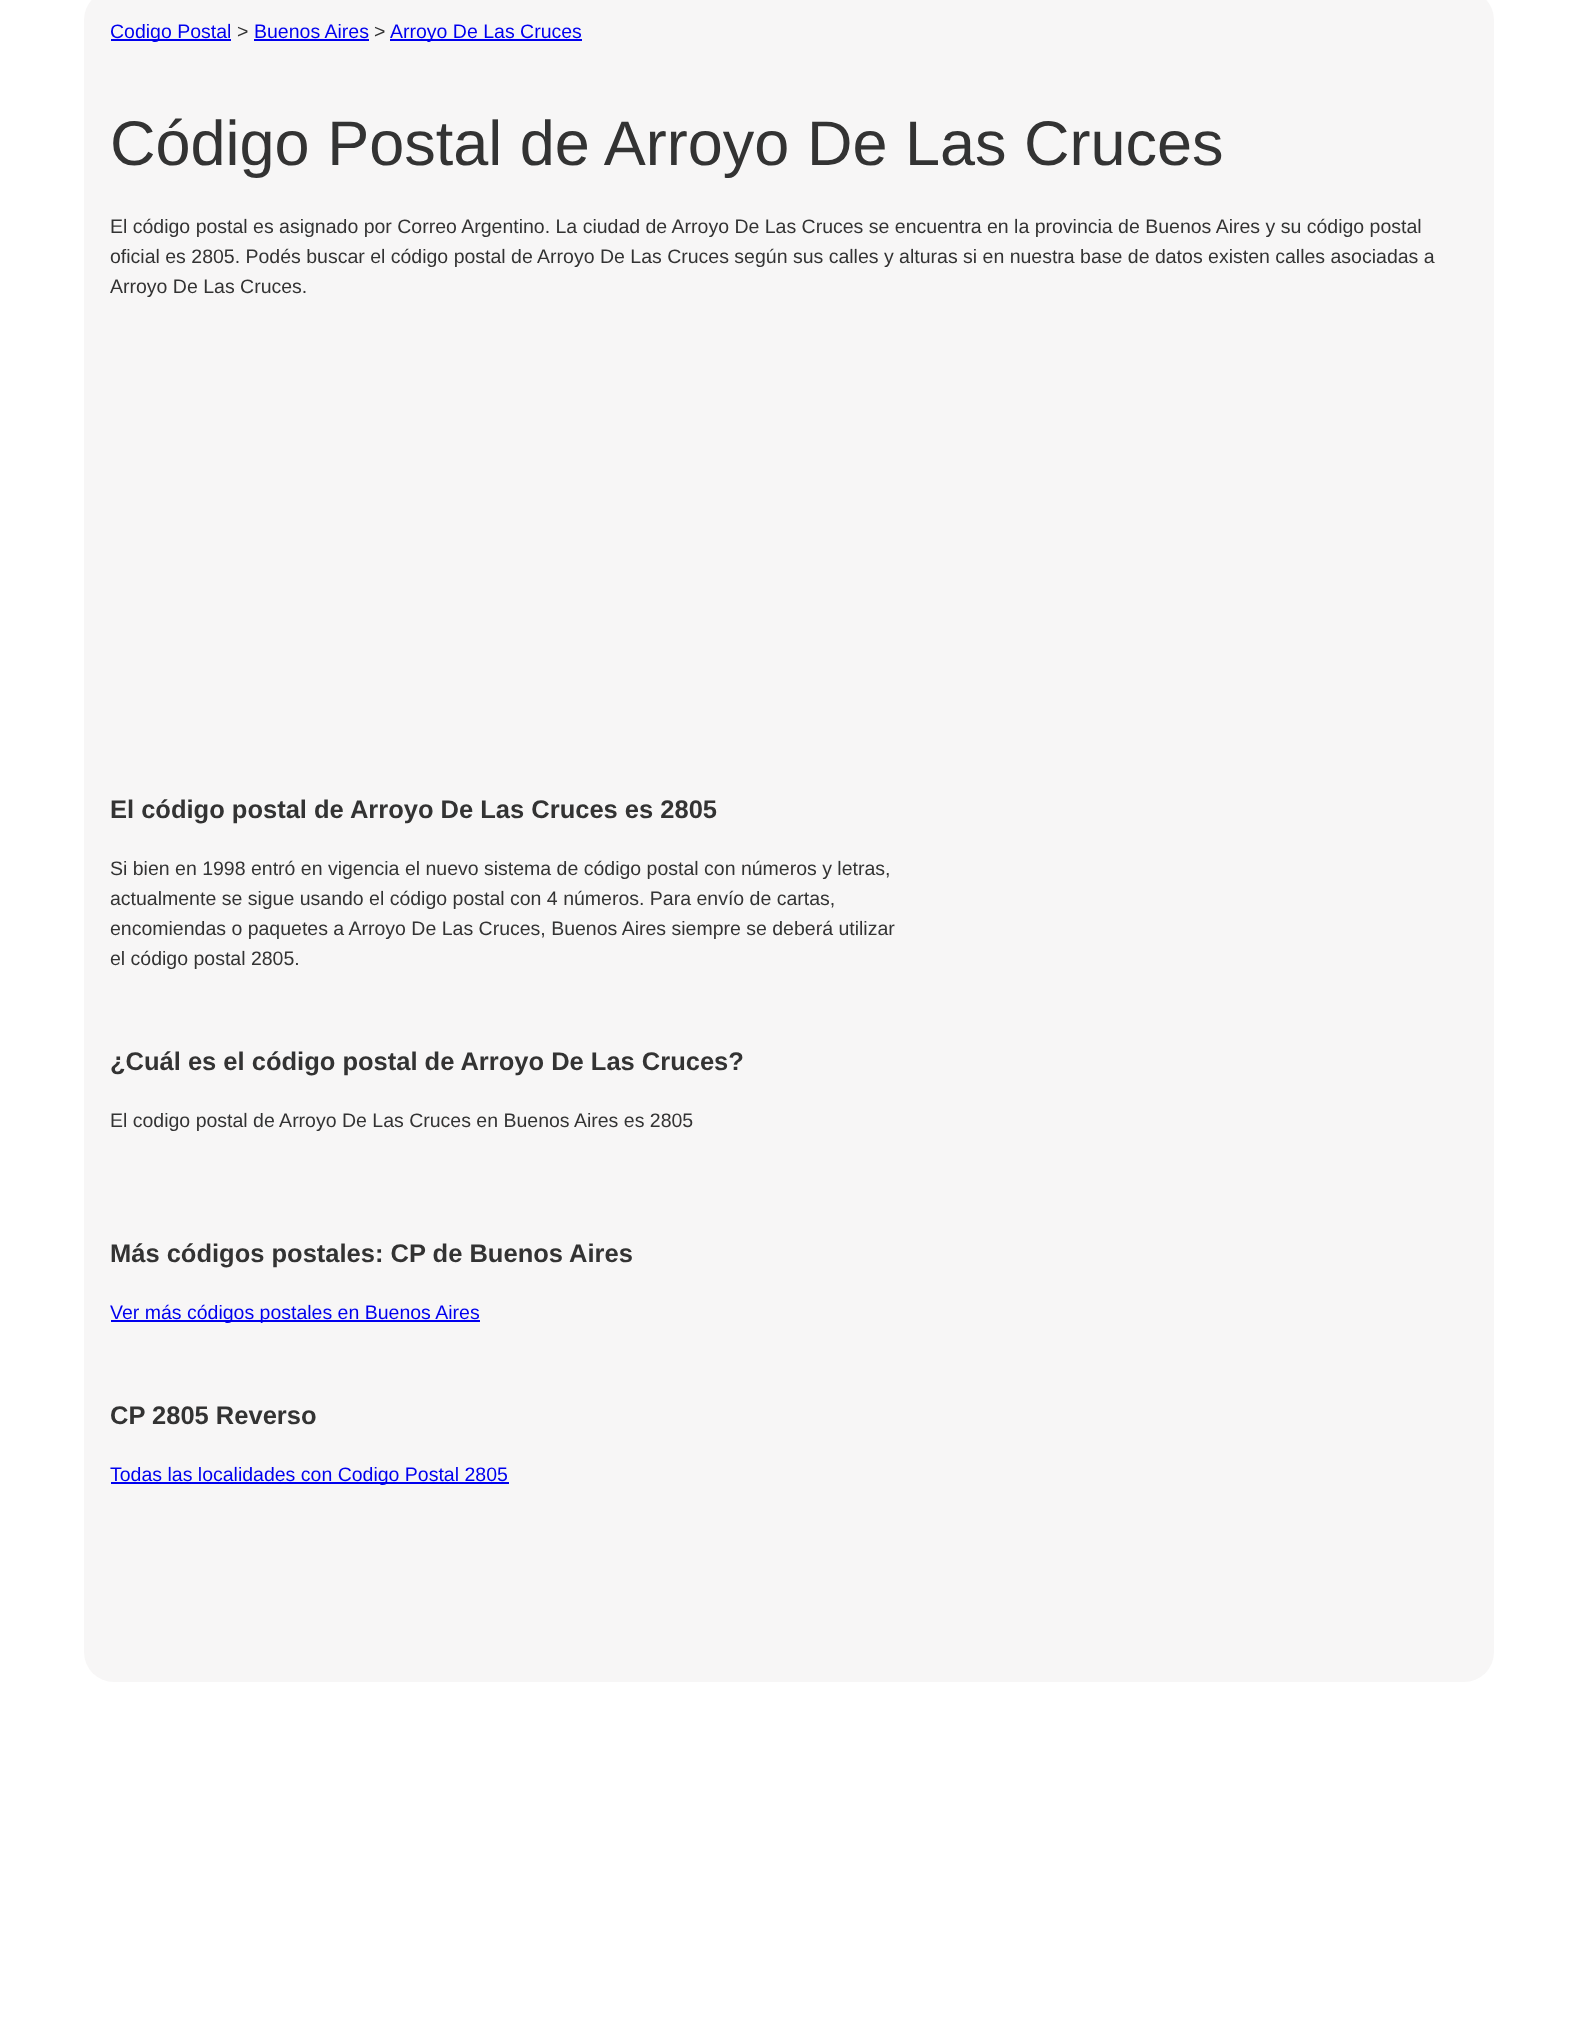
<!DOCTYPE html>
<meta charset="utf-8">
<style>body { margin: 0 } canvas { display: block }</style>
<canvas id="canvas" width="1576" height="2026"></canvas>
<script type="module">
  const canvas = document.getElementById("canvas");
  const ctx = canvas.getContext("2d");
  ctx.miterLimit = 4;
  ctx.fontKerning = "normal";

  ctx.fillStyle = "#ffffff";
  ctx.fillRect(0, 0, 1576, 2026);
  ctx.fillStyle = "#f7f6f6";
  ctx.beginPath();
  ctx.roundRect(84, -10, 1410, 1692, 30);
  ctx.fill();
  ctx.fillStyle = "#0000ee";
  ctx.fillRect(111, 39, 120, 2);
  ctx.font = "19.5px Liberation Sans";
  ctx.fillText("Codigo Postal", 110, 38);
  ctx.fillStyle = "#333333";
  ctx.fillText(">", 237, 38);
  ctx.fillStyle = "#0000ee";
  ctx.fillText("Buenos Aires", 254, 38);
  ctx.fillRect(254, 39, 115, 2);
  ctx.fillStyle = "#333333";
  ctx.fillText(">", 374, 38);
  ctx.fillStyle = "#0000ee";
  ctx.fillRect(390, 39, 192, 2);
  ctx.fillText("Arroyo De Las Cruces", 390, 38);
  ctx.font = "63px Liberation Sans";
  ctx.fillStyle = "#333333";
  ctx.fillText("Código Postal de Arroyo De Las Cruces", 110, 165);
  ctx.font = "19.5px Liberation Sans";
  ctx.fillText("El código postal es asignado por Correo Argentino. La ciudad de Arroyo De Las Cruces se encuentra en la provincia de Buenos Aires y su código postal", 110, 233);
  ctx.fillText("oficial es 2805. Podés buscar el código postal de Arroyo De Las Cruces según sus calles y alturas si en nuestra base de datos existen calles asociadas a", 110, 263);
  ctx.fillText("Arroyo De Las Cruces.", 110, 293);
  ctx.font = "bold 25.5px Liberation Sans";
  ctx.fillText("El código postal de Arroyo De Las Cruces es 2805", 110, 818);
  ctx.font = "19.5px Liberation Sans";
  ctx.fillText("Si bien en 1998 entró en vigencia el nuevo sistema de código postal con números y letras,", 110, 875);
  ctx.fillText("actualmente se sigue usando el código postal con 4 números. Para envío de cartas,", 110, 905);
  ctx.fillText("encomiendas o paquetes a Arroyo De Las Cruces, Buenos Aires siempre se deberá utilizar", 110, 935);
  ctx.fillText("el código postal 2805.", 110, 965);
  ctx.font = "bold 25.5px Liberation Sans";
  ctx.fillText("¿Cuál es el código postal de Arroyo De Las Cruces?", 110, 1070);
  ctx.font = "19.5px Liberation Sans";
  ctx.fillText("El codigo postal de Arroyo De Las Cruces en Buenos Aires es 2805", 110, 1127);
  ctx.font = "bold 25.5px Liberation Sans";
  ctx.fillText("Más códigos postales: CP de Buenos Aires", 110, 1262);
  ctx.fillStyle = "#0000ee";
  ctx.fillRect(111, 1320, 369, 2);
  ctx.font = "19.5px Liberation Sans";
  ctx.fillText("Ver más códigos postales en Buenos Aires", 110, 1319);
  ctx.font = "bold 25.5px Liberation Sans";
  ctx.fillStyle = "#333333";
  ctx.fillText("CP 2805 Reverso", 110, 1424);
  ctx.fillStyle = "#0000ee";
  ctx.fillRect(111, 1482, 398, 2);
  ctx.font = "19.5px Liberation Sans";
  ctx.fillText("Todas las localidades con Codigo Postal 2805", 110, 1481);
</script>
